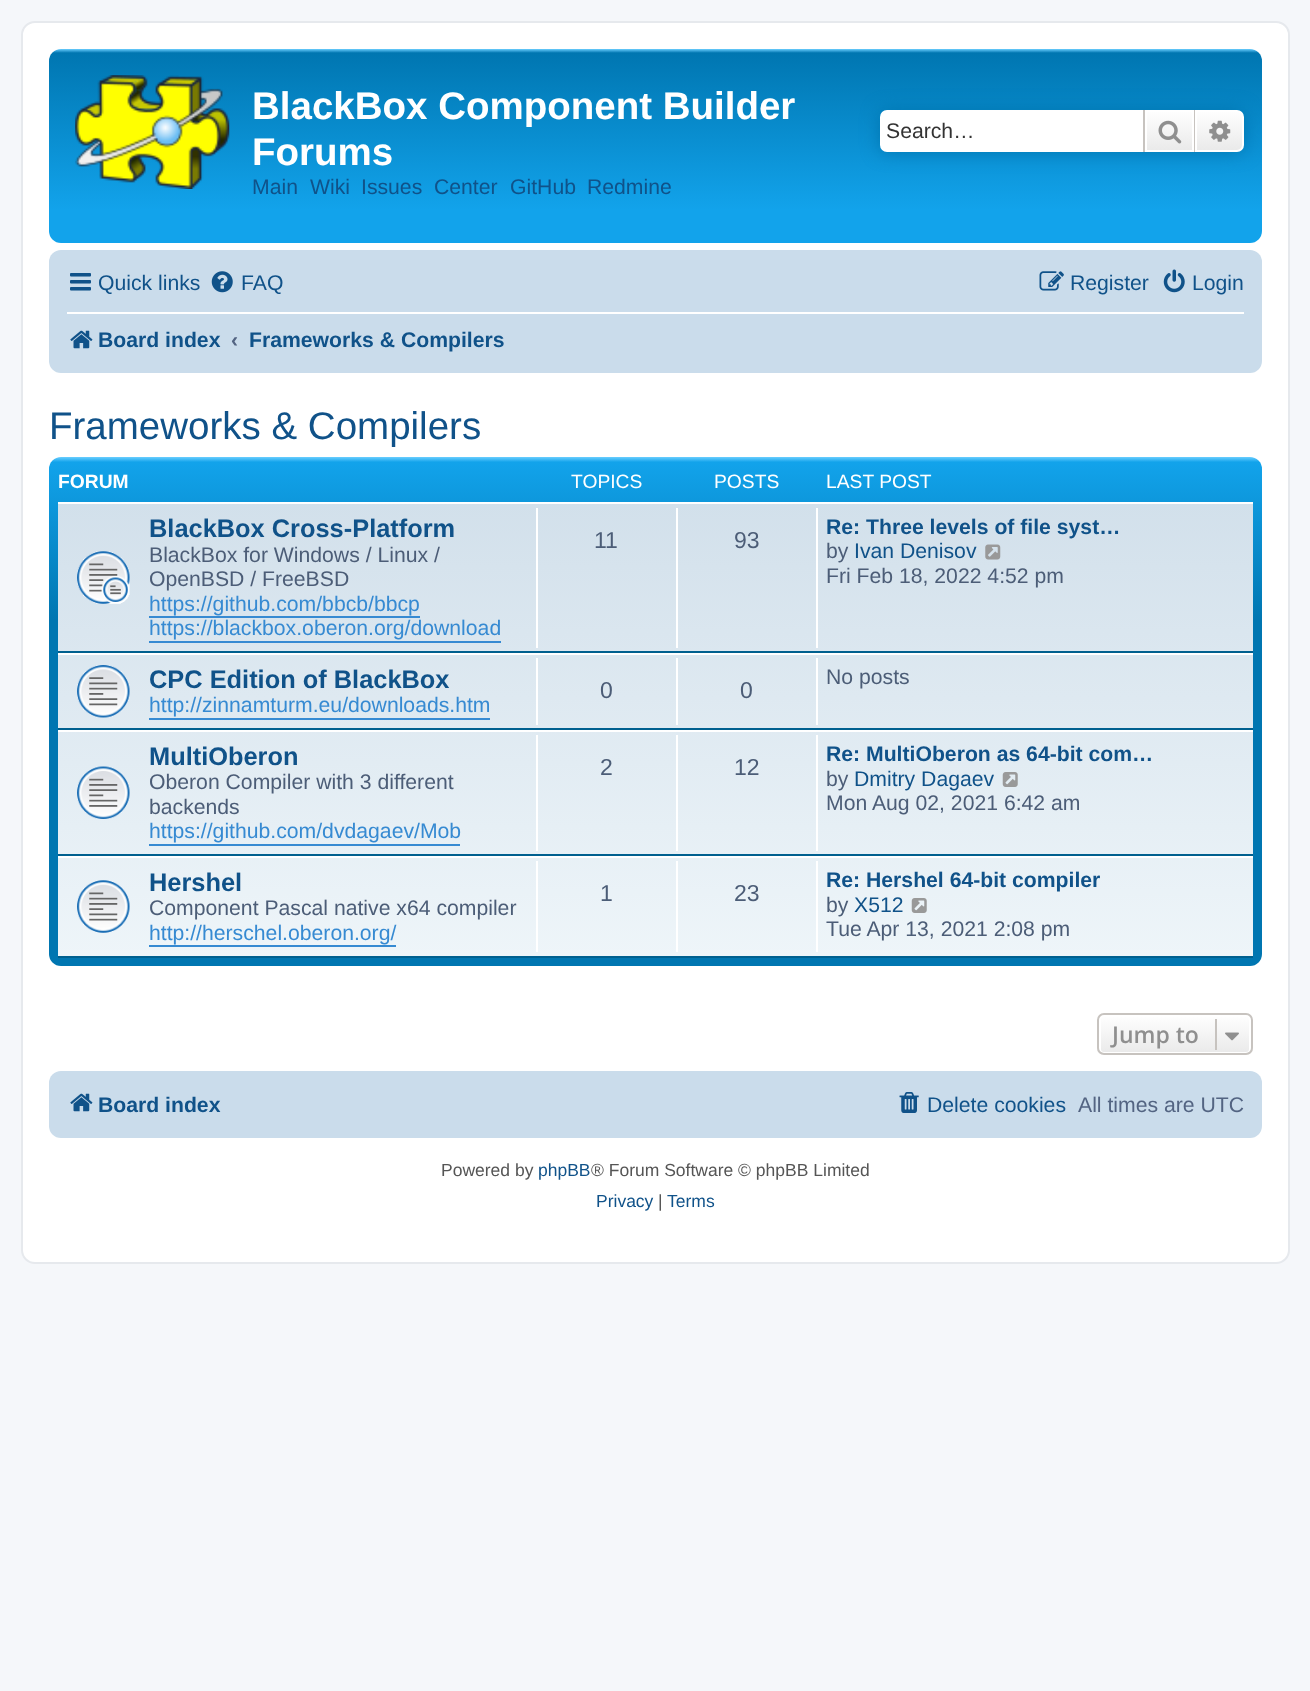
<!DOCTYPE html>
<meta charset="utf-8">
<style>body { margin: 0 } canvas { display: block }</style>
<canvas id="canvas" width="1310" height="1691"></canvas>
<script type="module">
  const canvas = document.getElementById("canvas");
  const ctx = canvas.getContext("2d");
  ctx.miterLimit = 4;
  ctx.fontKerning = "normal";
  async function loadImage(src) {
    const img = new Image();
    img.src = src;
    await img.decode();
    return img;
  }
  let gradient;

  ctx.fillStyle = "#f5f7fa";
  ctx.fillRect(0, 0, 1310, 1691);
  ctx.fillStyle = "#ffffff";
  ctx.beginPath();
  ctx.roundRect(22, 22, 1267, 1241, 13);
  ctx.fill();
  ctx.strokeStyle = "#e6e9ed";
  ctx.lineWidth = 2;
  ctx.stroke();
  gradient = ctx.createLinearGradient(655, 49, 655, 243);
  gradient.addColorStop(0, "#6aceff");
  gradient.addColorStop(0.02, "#0076b1");
  gradient.addColorStop(0.83, "#12a3eb");
  gradient.addColorStop(1, "#12a3eb");
  ctx.fillStyle = gradient;
  ctx.beginPath();
  ctx.roundRect(49, 49, 1213, 194, 12);
  ctx.fill();
  ctx.drawImage(await loadImage("img1.png"), 75, 75, 155, 114);
  ctx.font = "bold 38.5px Liberation Sans";
  ctx.fillStyle = "#ffffff";
  ctx.fillText("BlackBox Component Builder", 252, 119);
  ctx.fillText("Forums", 252, 165);
  ctx.font = "21.2px Liberation Sans";
  ctx.fillStyle = "#105289";
  ctx.fillText("Main", 252, 194);
  ctx.fillText("Wiki", 310, 194);
  ctx.fillText("Issues", 361, 194);
  ctx.fillText("Center", 434, 194);
  ctx.fillText("GitHub", 510, 194);
  ctx.fillText("Redmine", 587, 194);
  ctx.fillStyle = "#0075b0";
  ctx.filter = "blur(9px)";
  ctx.beginPath();
  ctx.roundRect(880, 110, 364, 42, 7);
  ctx.fill();
  ctx.filter = "none";
  ctx.fillStyle = "#ffffff";
  ctx.beginPath();
  ctx.roundRect(880, 110, 263, 42, [7, 0, 0, 7]);
  ctx.fill();
  ctx.fillStyle = "#333333";
  ctx.fillText("Search…", 886, 138);
  gradient = ctx.createLinearGradient(1169, 110, 1169, 152);
  gradient.addColorStop(0, "#ffffff");
  gradient.addColorStop(1, "#e9e9e9");
  ctx.fillStyle = gradient;
  ctx.fillRect(1147, 112, 45, 38);
  ctx.strokeStyle = "#ffffff";
  ctx.strokeRect(1146, 111, 47, 40);
  ctx.fillStyle = "#c7c3bf";
  ctx.fillRect(1194, 110, 1, 42);
  ctx.fillRect(1143, 110, 2, 42);
  ctx.drawImage(await loadImage("img2.png"), 1158, 120, 24, 24);
  gradient = ctx.createLinearGradient(1220, 110, 1220, 152);
  gradient.addColorStop(0, "#ffffff");
  gradient.addColorStop(1, "#e9e9e9");
  ctx.fillStyle = gradient;
  ctx.beginPath();
  ctx.roundRect(1196, 111, 47, 40, [0, 6, 6, 0]);
  ctx.fill();
  ctx.stroke();
  ctx.drawImage(await loadImage("img3.png"), 1209, 120, 22, 22);
  ctx.fillStyle = "#cadceb";
  ctx.beginPath();
  ctx.roundRect(49, 250, 1213, 123, 12);
  ctx.fill();
  ctx.drawImage(await loadImage("img4.png"), 70, 273, 21, 18);
  ctx.fillStyle = "#105289";
  ctx.fillText("Quick links", 98, 290);
  ctx.drawImage(await loadImage("img5.png"), 211, 271, 22, 22);
  ctx.fillText("FAQ", 241, 290);
  ctx.drawImage(await loadImage("img6.png"), 1039, 271, 25, 20);
  ctx.fillText("Register", 1070, 290);
  ctx.drawImage(await loadImage("img7.png"), 1163, 269, 22, 24);
  ctx.fillText("Login", 1192, 290);
  ctx.fillStyle = "#ffffff";
  ctx.fillRect(67, 312, 1177, 2);
  ctx.drawImage(await loadImage("img8.png"), 70, 330, 23, 19);
  ctx.font = "bold 21.2px Liberation Sans";
  ctx.fillStyle = "#105289";
  ctx.fillText("Board index", 98, 347);
  ctx.fillStyle = "#536482";
  ctx.fillText("‹", 231, 347);
  ctx.fillStyle = "#105289";
  ctx.fillText("Frameworks & Compilers", 249, 347);
  ctx.font = "38.5px Liberation Sans";
  ctx.fillText("Frameworks & Compilers", 49, 439);
  gradient = ctx.createLinearGradient(655, 457, 655, 966);
  gradient.addColorStop(0, "#6aceff");
  gradient.addColorStop(0.01, "#12a3eb");
  gradient.addColorStop(0.32, "#0076b1");
  gradient.addColorStop(1, "#0076b1");
  ctx.fillStyle = gradient;
  ctx.beginPath();
  ctx.roundRect(49, 457, 1213, 509, 12);
  ctx.fill();
  ctx.font = "bold 19.25px Liberation Sans";
  ctx.fillStyle = "#ffffff";
  ctx.fillText("FORUM", 58, 488);
  ctx.font = "19.25px Liberation Sans";
  ctx.fillText("TOPICS", 571, 488);
  ctx.fillText("POSTS", 714, 488);
  ctx.fillText("LAST POST", 826, 488);
  gradient = ctx.createLinearGradient(655, 502, 655, 957);
  gradient.addColorStop(0, "#d2e0eb");
  gradient.addColorStop(1, "#eef5f9");
  ctx.fillStyle = gradient;
  ctx.fillRect(58, 504, 1195, 452);
  ctx.fillStyle = "#ffffff";
  ctx.fillRect(58, 502, 1195, 2);
  ctx.fillStyle = "#00608f";
  ctx.fillRect(58, 651, 1195, 2);
  ctx.drawImage(await loadImage("img9.png"), 77, 551, 53, 53);
  ctx.font = "bold 25.4px Liberation Sans";
  ctx.fillStyle = "#105289";
  ctx.fillText("BlackBox Cross-Platform", 149, 537);
  ctx.font = "21.2px Liberation Sans";
  ctx.fillStyle = "#4c5d77";
  ctx.fillText("BlackBox for Windows / Linux /", 149, 562);
  ctx.fillText("OpenBSD / FreeBSD", 149, 586);
  ctx.fillStyle = "#368ad2";
  ctx.fillText("https://github.com/bbcb/bbcp", 149, 611);
  ctx.fillRect(149, 616, 271, 2);
  ctx.fillText("https://blackbox.oberon.org/download", 149, 635);
  ctx.fillRect(149, 641, 352, 2);
  ctx.fillStyle = "#ffffff";
  ctx.fillRect(536, 508, 2, 140);
  ctx.font = "23px Liberation Sans";
  ctx.fillStyle = "#4c5d77";
  ctx.fillText("11", 594, 548);
  ctx.fillStyle = "#ffffff";
  ctx.fillRect(676, 508, 2, 140);
  ctx.fillStyle = "#4c5d77";
  ctx.fillText("93", 734, 548);
  ctx.fillStyle = "#ffffff";
  ctx.fillRect(816, 508, 2, 140);
  ctx.font = "bold 21.2px Liberation Sans";
  ctx.fillStyle = "#105289";
  ctx.fillText("Re: Three levels of file syst…", 826, 534);
  ctx.font = "21.2px Liberation Sans";
  ctx.fillStyle = "#4c5d77";
  ctx.fillText("by", 826, 558);
  ctx.fillStyle = "#105289";
  ctx.fillText("Ivan Denisov", 854, 558);
  ctx.drawImage(await loadImage("img10.png"), 985, 544, 16, 16);
  ctx.fillStyle = "#4c5d77";
  ctx.fillText("Fri Feb 18, 2022 4:52 pm", 826, 583);
  ctx.fillStyle = "#ffffff";
  ctx.fillRect(58, 653, 1195, 2);
  ctx.fillStyle = "#00608f";
  ctx.fillRect(58, 728, 1195, 2);
  ctx.drawImage(await loadImage("img11.png"), 77, 665, 53, 53);
  ctx.font = "bold 25.4px Liberation Sans";
  ctx.fillStyle = "#105289";
  ctx.fillText("CPC Edition of BlackBox", 149, 688);
  ctx.font = "21.2px Liberation Sans";
  ctx.fillStyle = "#368ad2";
  ctx.fillText("http://zinnamturm.eu/downloads.htm", 149, 712);
  ctx.fillRect(149, 718, 341, 2);
  ctx.fillStyle = "#ffffff";
  ctx.fillRect(536, 658, 2, 67);
  ctx.font = "23px Liberation Sans";
  ctx.fillStyle = "#4c5d77";
  ctx.fillText("0", 600, 698);
  ctx.fillStyle = "#ffffff";
  ctx.fillRect(676, 658, 2, 67);
  ctx.fillStyle = "#4c5d77";
  ctx.fillText("0", 740, 698);
  ctx.fillStyle = "#ffffff";
  ctx.fillRect(816, 658, 2, 67);
  ctx.font = "21.2px Liberation Sans";
  ctx.fillStyle = "#4c5d77";
  ctx.fillText("No posts", 826, 684);
  ctx.fillStyle = "#ffffff";
  ctx.fillRect(58, 730, 1195, 2);
  ctx.fillStyle = "#00608f";
  ctx.fillRect(58, 854, 1195, 2);
  ctx.drawImage(await loadImage("img12.png"), 77, 766, 53, 53);
  ctx.font = "bold 25.4px Liberation Sans";
  ctx.fillStyle = "#105289";
  ctx.fillText("MultiOberon", 149, 765);
  ctx.font = "21.2px Liberation Sans";
  ctx.fillStyle = "#4c5d77";
  ctx.fillText("Oberon Compiler with 3 different", 149, 789);
  ctx.fillText("backends", 149, 814);
  ctx.fillStyle = "#368ad2";
  ctx.fillText("https://github.com/dvdagaev/Mob", 149, 838);
  ctx.fillRect(149, 844, 311, 2);
  ctx.fillStyle = "#ffffff";
  ctx.fillRect(536, 735, 2, 116);
  ctx.font = "23px Liberation Sans";
  ctx.fillStyle = "#4c5d77";
  ctx.fillText("2", 600, 775);
  ctx.fillStyle = "#ffffff";
  ctx.fillRect(676, 735, 2, 116);
  ctx.fillStyle = "#4c5d77";
  ctx.fillText("12", 734, 775);
  ctx.fillStyle = "#ffffff";
  ctx.fillRect(816, 735, 2, 116);
  ctx.font = "bold 21.2px Liberation Sans";
  ctx.fillStyle = "#105289";
  ctx.fillText("Re: MultiOberon as 64-bit com…", 826, 761);
  ctx.font = "21.2px Liberation Sans";
  ctx.fillStyle = "#4c5d77";
  ctx.fillText("by", 826, 786);
  ctx.fillStyle = "#105289";
  ctx.fillText("Dmitry Dagaev", 854, 786);
  ctx.drawImage(await loadImage("img13.png"), 1002, 772, 16, 15);
  ctx.fillStyle = "#4c5d77";
  ctx.fillText("Mon Aug 02, 2021 6:42 am", 826, 810);
  ctx.fillStyle = "#ffffff";
  ctx.fillRect(58, 856, 1195, 2);
  ctx.fillStyle = "#00608f";
  ctx.fillRect(58, 956, 1195, 2);
  ctx.drawImage(await loadImage("img14.png"), 77, 880, 53, 53);
  ctx.font = "bold 25.4px Liberation Sans";
  ctx.fillStyle = "#105289";
  ctx.fillText("Hershel", 149, 891);
  ctx.font = "21.2px Liberation Sans";
  ctx.fillStyle = "#4c5d77";
  ctx.fillText("Component Pascal native x64 compiler", 149, 915);
  ctx.fillStyle = "#368ad2";
  ctx.fillText("http://herschel.oberon.org/", 149, 940);
  ctx.fillRect(149, 945, 247, 2);
  ctx.fillStyle = "#ffffff";
  ctx.fillRect(536, 861, 2, 91);
  ctx.font = "23px Liberation Sans";
  ctx.fillStyle = "#4c5d77";
  ctx.fillText("1", 600, 901);
  ctx.fillStyle = "#ffffff";
  ctx.fillRect(676, 861, 2, 91);
  ctx.fillStyle = "#4c5d77";
  ctx.fillText("23", 734, 901);
  ctx.fillStyle = "#ffffff";
  ctx.fillRect(816, 861, 2, 91);
  ctx.font = "bold 21.2px Liberation Sans";
  ctx.fillStyle = "#105289";
  ctx.fillText("Re: Hershel 64-bit compiler", 826, 887);
  ctx.font = "21.2px Liberation Sans";
  ctx.fillStyle = "#4c5d77";
  ctx.fillText("by", 826, 912);
  ctx.fillStyle = "#105289";
  ctx.fillText("X512", 854, 912);
  ctx.drawImage(await loadImage("img15.png"), 911, 898, 16, 15);
  ctx.fillStyle = "#4c5d77";
  ctx.fillText("Tue Apr 13, 2021 2:08 pm", 826, 936);
  ctx.save();
  ctx.beginPath();
  ctx.roundRect(1097, 1013, 156, 42, 7);
  ctx.clip();
  gradient = ctx.createLinearGradient(1175, 1015, 1175, 1054);
  gradient.addColorStop(0, "#ffffff");
  gradient.addColorStop(1, "#e9e9e9");
  ctx.fillStyle = gradient;
  ctx.fillRect(1097, 1015, 156, 39);
  ctx.restore();
  ctx.beginPath();
  ctx.roundRect(1100, 1016, 150, 37, 4);
  ctx.stroke();
  ctx.beginPath();
  ctx.roundRect(1098, 1014, 154, 40, 6);
  ctx.strokeStyle = "#c7c3bf";
  ctx.stroke();
  ctx.font = "600 23px Open Sans";
  ctx.fillStyle = "#8f8f8f";
  ctx.fillText("Jump to", 1112, 1043);
  ctx.fillStyle = "#c7c3bf";
  ctx.fillRect(1215, 1019, 2, 31);
  ctx.drawImage(await loadImage("img16.png"), 1225, 1032, 14, 9);
  ctx.fillStyle = "#cadceb";
  ctx.beginPath();
  ctx.roundRect(49, 1071, 1213, 67, 12);
  ctx.fill();
  ctx.drawImage(await loadImage("img8.png"), 70, 1093, 23, 19);
  ctx.font = "bold 21.2px Liberation Sans";
  ctx.fillStyle = "#105289";
  ctx.fillText("Board index", 98, 1112);
  ctx.drawImage(await loadImage("img17.png"), 899, 1092, 20, 21);
  ctx.font = "21.2px Liberation Sans";
  ctx.fillText("Delete cookies", 927, 1112);
  ctx.fillStyle = "#536482";
  ctx.fillText("All times are UTC", 1078, 1112);
  ctx.font = "17.5px Liberation Sans";
  ctx.fillStyle = "#555555";
  ctx.fillText("Powered by", 441, 1176);
  ctx.fillStyle = "#105289";
  ctx.fillText("phpBB", 538, 1176);
  ctx.fillStyle = "#555555";
  ctx.fillText("® Forum Software © phpBB Limited", 591, 1176);
  ctx.fillStyle = "#105289";
  ctx.fillText("Privacy", 596, 1207);
  ctx.fillStyle = "#555555";
  ctx.fillText("|", 658, 1207);
  ctx.fillStyle = "#105289";
  ctx.fillText("Terms", 667, 1207);
</script>
